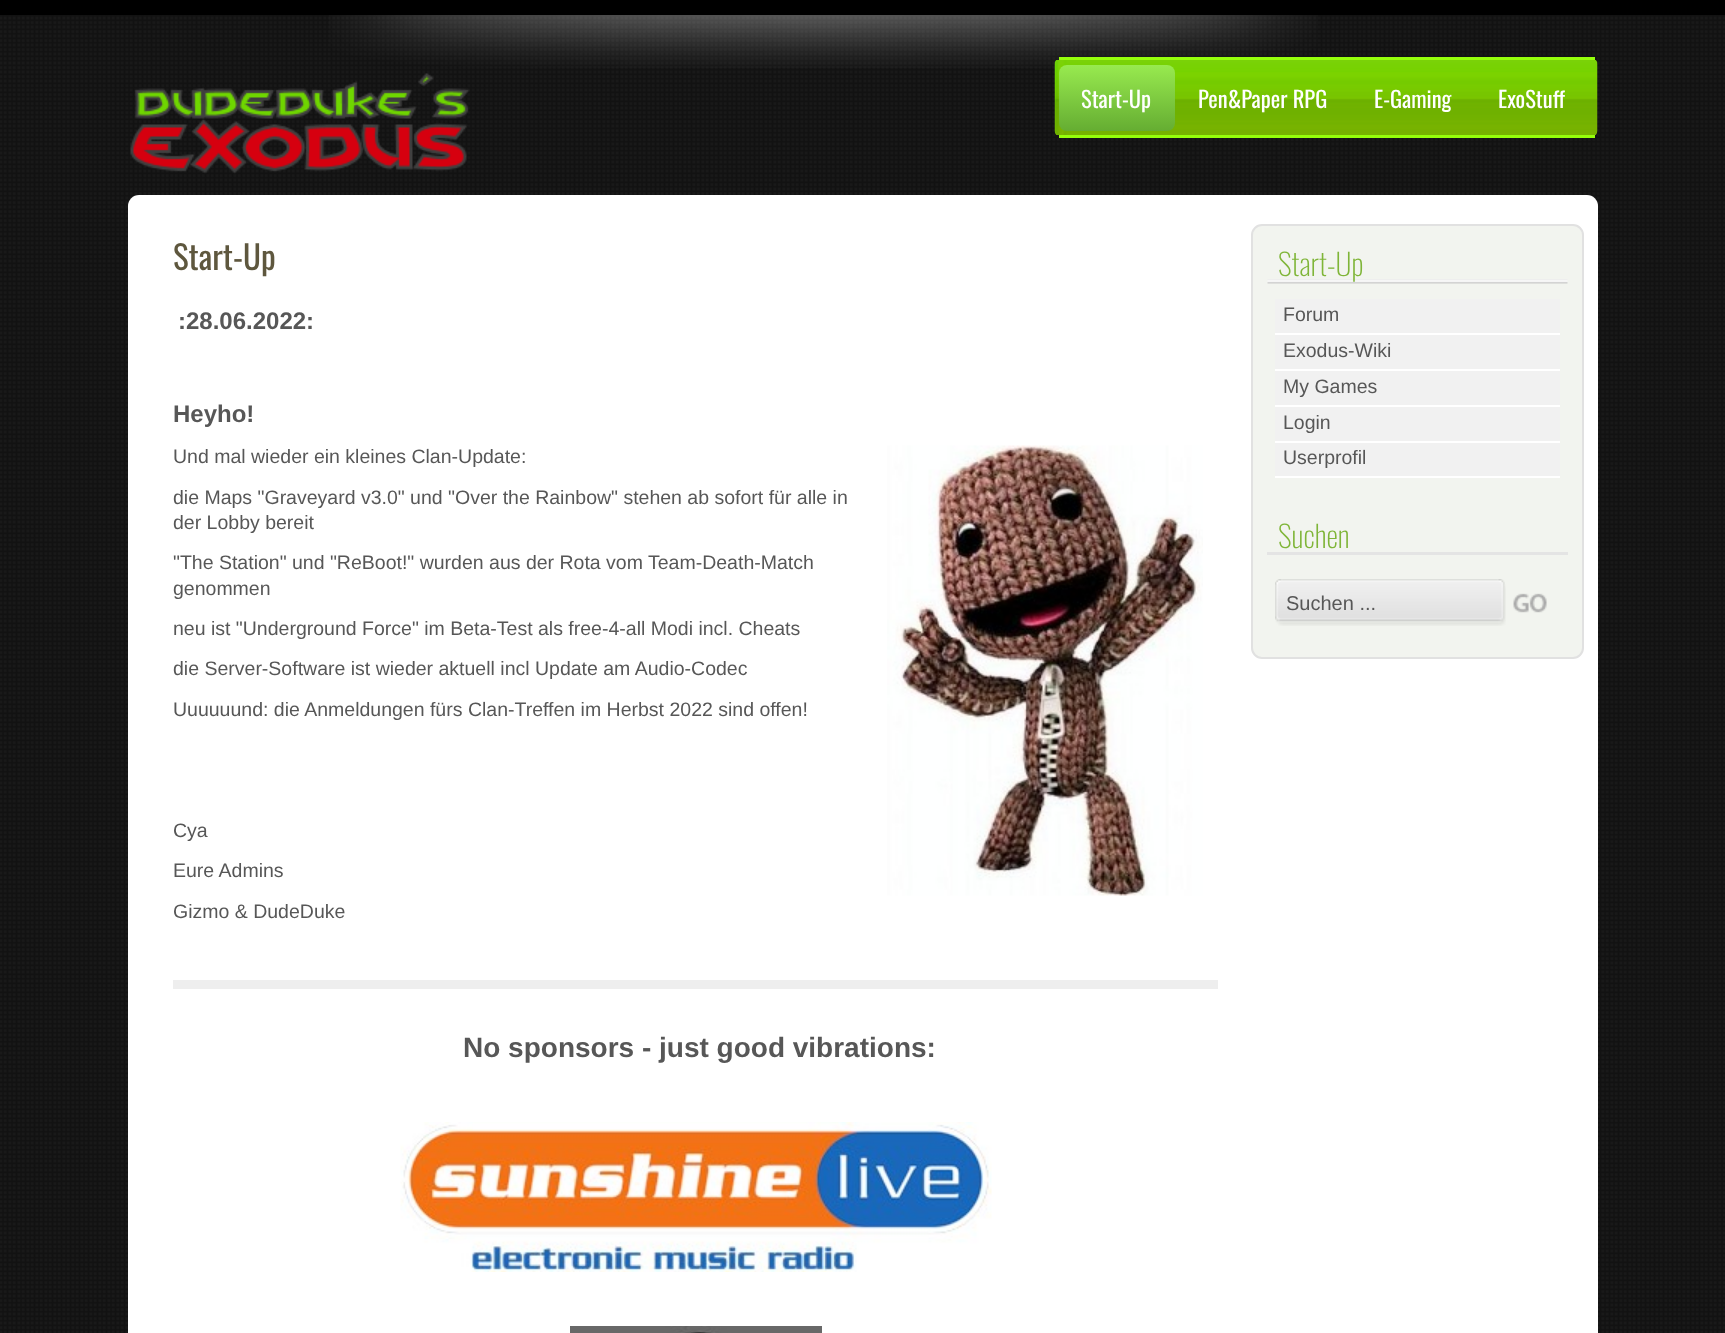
<!DOCTYPE html>
<meta charset="utf-8">
<style>body { margin: 0 } canvas { display: block }</style>
<canvas id="canvas" width="1725" height="1333"></canvas>
<script type="module">
  const canvas = document.getElementById("canvas");
  const ctx = canvas.getContext("2d");
  ctx.miterLimit = 4;
  ctx.fontKerning = "normal";
  async function loadImage(src) {
    const img = new Image();
    img.src = src;
    await img.decode();
    return img;
  }
  let gradient;

  ctx.fillStyle = "#ffffff";
  ctx.fillRect(0, 0, 1725, 1333);
  ctx.drawImage(await loadImage("img1.png"), 0, 15, 1725, 1318);
  ctx.fillStyle = "#000000";
  ctx.fillRect(0, 0, 1725, 15);
  ctx.drawImage(await loadImage("img2.png"), 329, 15, 989, 53);
  ctx.drawImage(await loadImage("img3.png"), 130, 73, 340, 101);
  ctx.drawImage(await loadImage("img4.png"), 1054, 60, 544, 75);
  ctx.fillStyle = "#95ff0b";
  ctx.fillRect(1059, 57, 536, 3);
  ctx.fillRect(1059, 135, 536, 3);
  gradient = ctx.createLinearGradient(1117, 65, 1117, 131);
  gradient.addColorStop(0, "#98ea4f");
  gradient.addColorStop(1, "#65ad32");
  ctx.fillStyle = gradient;
  ctx.beginPath();
  ctx.roundRect(1059, 65, 116, 66, 8);
  ctx.fill();
  ctx.font = "22.5px Oswald";
  ctx.fillStyle = "#ffffff";
  ctx.fillText("Start-Up", 1081, 108);
  ctx.fillText("Pen&Paper RPG", 1198, 108);
  ctx.fillText("E-Gaming", 1374, 108);
  ctx.fillText("ExoStuff", 1498, 108);
  ctx.beginPath();
  ctx.roundRect(128, 195, 1470, 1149, 11);
  ctx.fill();
  ctx.font = "33px Oswald";
  ctx.fillStyle = "#5e573e";
  ctx.fillText("Start-Up", 173, 270);
  ctx.font = "bold 24px Liberation Sans";
  ctx.fillStyle = "#575757";
  ctx.fillText(":28.06.2022:", 178, 329);
  ctx.fillText("Heyho!", 173, 422);
  ctx.font = "19.5px Liberation Sans";
  ctx.fillText("Und mal wieder ein kleines Clan-Update:", 173, 463);
  ctx.drawImage(await loadImage("img5.png"), 887, 445, 316, 451);
  ctx.fillText("die Maps \"Graveyard v3.0\" und \"Over the Rainbow\" stehen ab sofort für alle in", 173, 504);
  ctx.fillText("der Lobby bereit", 173, 529);
  ctx.fillText("\"The Station\" und \"ReBoot!\" wurden aus der Rota vom Team-Death-Match", 173, 569);
  ctx.fillText("genommen", 173, 595);
  ctx.fillText("neu ist \"Underground Force\" im Beta-Test als free-4-all Modi incl. Cheats", 173, 635);
  ctx.fillText("die Server-Software ist wieder aktuell incl Update am Audio-Codec", 173, 675);
  ctx.fillText("Uuuuuund: die Anmeldungen fürs Clan-Treffen im Herbst 2022 sind offen!", 173, 716);
  ctx.fillText("Cya", 173, 837);
  ctx.fillText("Eure Admins", 173, 877);
  ctx.fillText("Gizmo & DudeDuke", 173, 918);
  ctx.fillStyle = "#eeeeee";
  ctx.fillRect(173, 980, 1045, 9);
  ctx.font = "bold 28px Liberation Sans";
  ctx.fillStyle = "#575757";
  ctx.fillText("No sponsors - just good vibrations:", 463, 1057);
  ctx.drawImage(await loadImage("img6.png"), 400, 1122, 592, 150);
  ctx.drawImage(await loadImage("img7.png"), 570, 1326, 252, 7);
  ctx.fillStyle = "#f2f4ef";
  ctx.beginPath();
  ctx.roundRect(1252, 225, 331, 433, 10);
  ctx.fill();
  ctx.strokeStyle = "#e1e1e1";
  ctx.lineWidth = 2;
  ctx.stroke();
  ctx.drawImage(await loadImage("img8.png"), 1267, 279, 301, 5);
  ctx.font = "200 30px Oswald";
  ctx.fillStyle = "#7fb538";
  ctx.fillText("Start-Up", 1278, 276);
  ctx.fillStyle = "#f1f1f1";
  ctx.fillRect(1275, 299, 285, 34);
  ctx.fillStyle = "#ffffff";
  ctx.fillRect(1275, 333, 285, 2);
  ctx.font = "19.5px Liberation Sans";
  ctx.fillStyle = "#575757";
  ctx.fillText("Forum", 1283, 321);
  ctx.fillStyle = "#f1f1f1";
  ctx.fillRect(1275, 335, 285, 34);
  ctx.fillStyle = "#ffffff";
  ctx.fillRect(1275, 369, 285, 2);
  ctx.fillStyle = "#575757";
  ctx.fillText("Exodus-Wiki", 1283, 357);
  ctx.fillStyle = "#f1f1f1";
  ctx.fillRect(1275, 371, 285, 34);
  ctx.fillStyle = "#ffffff";
  ctx.fillRect(1275, 405, 285, 2);
  ctx.fillStyle = "#575757";
  ctx.fillText("My Games", 1283, 393);
  ctx.fillStyle = "#f1f1f1";
  ctx.fillRect(1275, 407, 285, 34);
  ctx.fillStyle = "#ffffff";
  ctx.fillRect(1275, 441, 285, 2);
  ctx.fillStyle = "#575757";
  ctx.fillText("Login", 1283, 429);
  ctx.fillStyle = "#f1f1f1";
  ctx.fillRect(1275, 443, 285, 33);
  ctx.fillStyle = "#ffffff";
  ctx.fillRect(1275, 476, 285, 2);
  ctx.fillStyle = "#575757";
  ctx.fillText("Userprofil", 1283, 464);
  ctx.fillStyle = "#e4e4e4";
  ctx.fillRect(1267, 552, 301, 3);
  ctx.font = "200 30px Oswald";
  ctx.fillStyle = "#7fb538";
  ctx.fillText("Suchen", 1278, 548);
  ctx.drawImage(await loadImage("img9.png"), 1275, 579, 231, 47);
  ctx.font = "20px Liberation Sans";
  ctx.fillStyle = "#575757";
  ctx.fillText("Suchen ...", 1286, 610);
  ctx.drawImage(await loadImage("img10.png"), 1513, 593, 34, 20);
</script>
